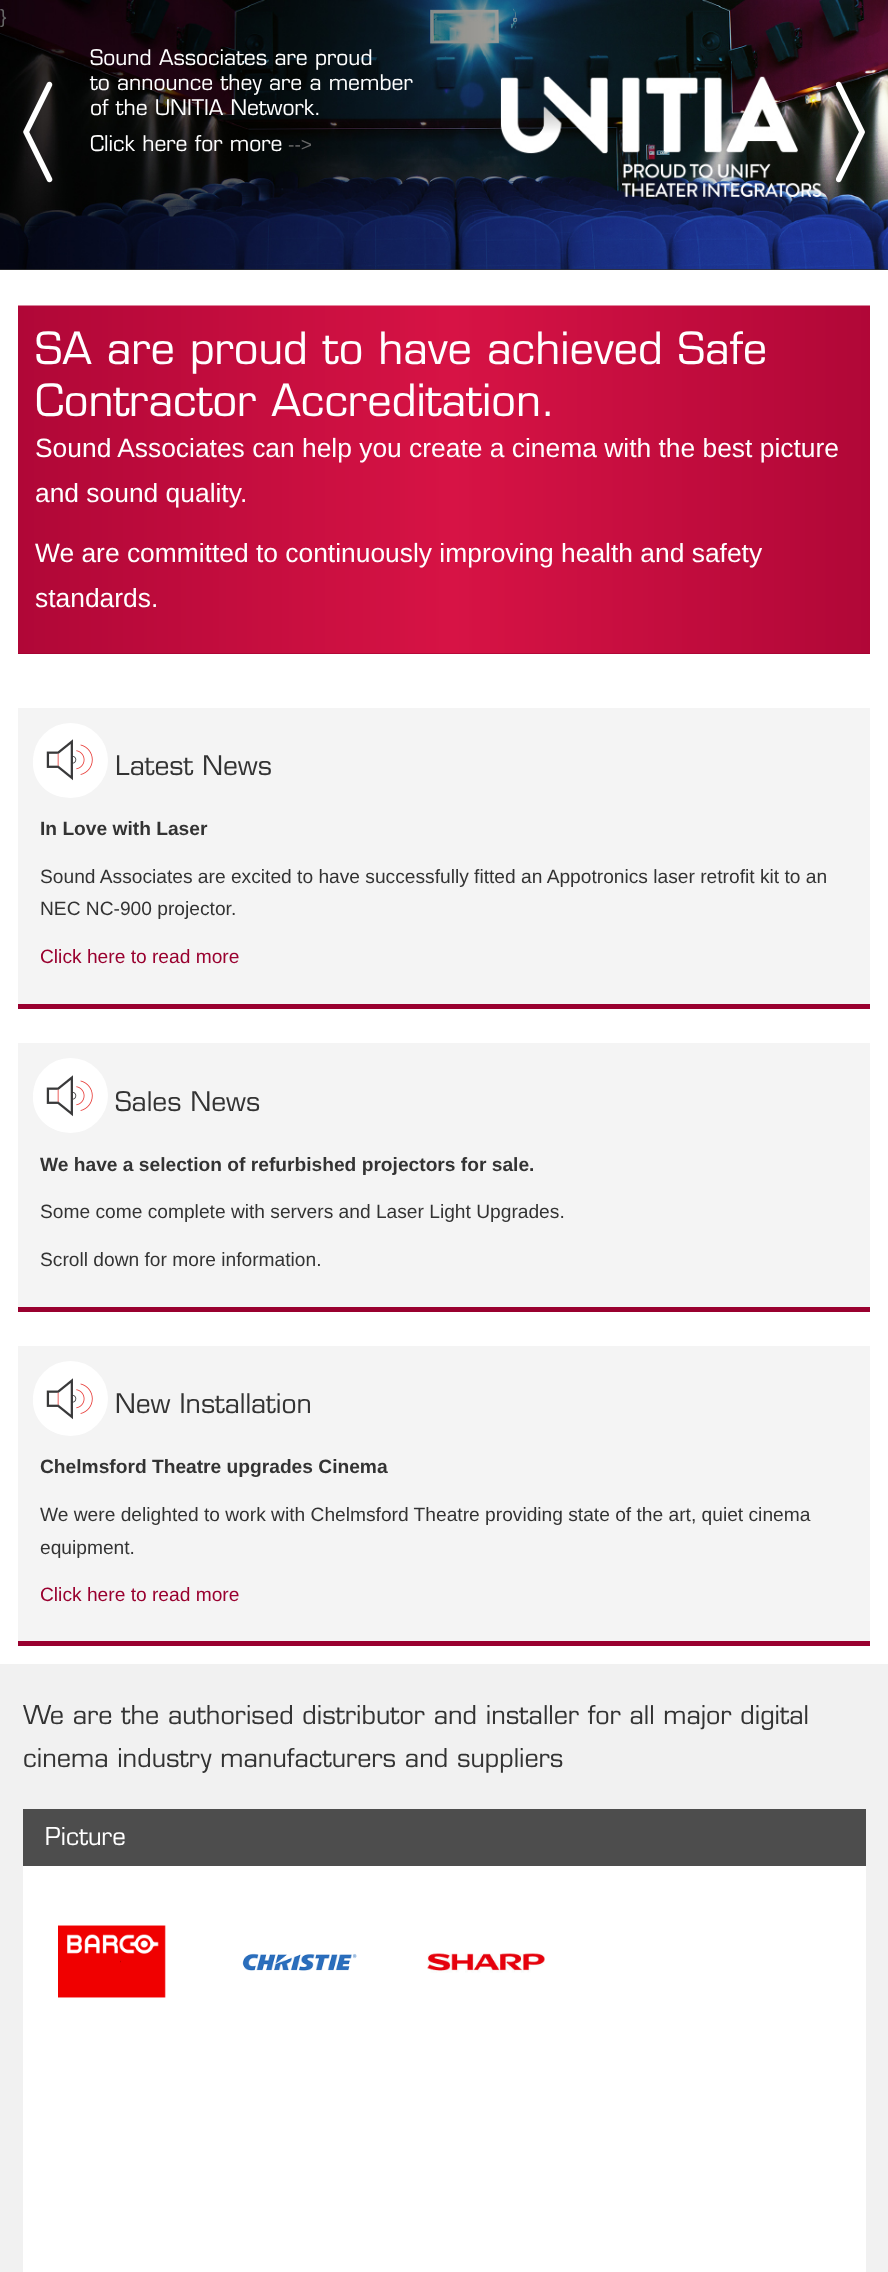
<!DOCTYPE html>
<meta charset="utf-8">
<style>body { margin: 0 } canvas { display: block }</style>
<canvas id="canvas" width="888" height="2272"></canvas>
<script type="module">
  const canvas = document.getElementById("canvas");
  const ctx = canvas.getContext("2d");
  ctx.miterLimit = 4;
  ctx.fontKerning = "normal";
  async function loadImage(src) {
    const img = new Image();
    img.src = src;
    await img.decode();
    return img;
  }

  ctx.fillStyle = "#ffffff";
  ctx.fillRect(0, 0, 888, 2272);
  ctx.fillStyle = "#333333";
  ctx.fillRect(0, 269, 888, 1);
  ctx.drawImage(await loadImage("img1.png"), 0, 0, 888, 270);
  ctx.font = "19.2px Liberation Sans";
  ctx.fillStyle = "#666666";
  ctx.fillText("}", 0, 23);
  ctx.font = "500 21.1px 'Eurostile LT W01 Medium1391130'";
  ctx.fillStyle = "#ffffff";
  ctx.fillText("Sound Associates are proud", 90, 65);
  ctx.fillText("to announce they are a member", 90, 90);
  ctx.fillText("of the UNITIA Network.", 90, 115);
  ctx.fillText("Click here for more", 90, 151);
  ctx.font = "19.2px Liberation Sans";
  ctx.fillStyle = "#666666";
  ctx.fillText("-->", 288, 151);
  ctx.drawImage(await loadImage("img2.png"), 23, 81, 30, 102);
  ctx.drawImage(await loadImage("img3.png"), 836, 81, 29, 102);
  ctx.fillStyle = "#99002f";
  ctx.fillRect(18, 653, 852, 1);
  ctx.drawImage(await loadImage("img4.png"), 18, 305, 852, 349);
  ctx.font = "500 43.25px 'Eurostile LT W01 Medium1391130'";
  ctx.fillStyle = "#ffffff";
  ctx.fillText("SA are proud to have achieved Safe", 35, 364);
  ctx.fillText("Contractor Accreditation.", 35, 416);
  ctx.font = "26.4px Liberation Sans";
  ctx.fillText("Sound Associates can help you create a cinema with the best picture", 35, 457);
  ctx.fillText("and sound quality.", 35, 502);
  ctx.fillText("We are committed to continuously improving health and safety", 35, 562);
  ctx.fillText("standards.", 35, 607);
  ctx.fillStyle = "#f4f4f4";
  ctx.fillRect(18, 708, 852, 296);
  ctx.fillStyle = "#99002f";
  ctx.fillRect(18, 1004, 852, 5);
  ctx.drawImage(await loadImage("img5.png"), 33, 755, 29, 42);
  ctx.fillStyle = "#ffffff";
  ctx.beginPath();
  ctx.arc(70.5, 760.5, 37.5, 0, Math.PI * 2);
  ctx.fill();
  ctx.drawImage(await loadImage("img6.png"), 46, 739, 47, 42);
  ctx.font = "500 26.4px 'Eurostile LT W01 Medium1391130'";
  ctx.fillStyle = "#333333";
  ctx.fillText("Latest News", 115, 775);
  ctx.font = "bold 19.2px Liberation Sans";
  ctx.fillText("In Love with Laser", 40, 835);
  ctx.font = "19.2px Liberation Sans";
  ctx.fillText("Sound Associates are excited to have successfully fitted an Appotronics laser retrofit kit to an", 40, 883);
  ctx.fillText("NEC NC-900 projector.", 40, 915);
  ctx.fillStyle = "#99002f";
  ctx.fillText("Click here to read more", 40, 963);
  ctx.fillStyle = "#f4f4f4";
  ctx.fillRect(18, 1043, 852, 264);
  ctx.fillStyle = "#99002f";
  ctx.fillRect(18, 1307, 852, 5);
  ctx.drawImage(await loadImage("img7.png"), 33, 1086, 29, 46);
  ctx.fillStyle = "#ffffff";
  ctx.beginPath();
  ctx.arc(70.5, 1095.5, 37.5, 0, Math.PI * 2);
  ctx.fill();
  ctx.drawImage(await loadImage("img6.png"), 46, 1075, 47, 42);
  ctx.font = "500 26.4px 'Eurostile LT W01 Medium1391130'";
  ctx.fillStyle = "#333333";
  ctx.fillText("Sales News", 115, 1111);
  ctx.font = "bold 19.2px Liberation Sans";
  ctx.fillText("We have a selection of refurbished projectors for sale.", 40, 1171);
  ctx.font = "19.2px Liberation Sans";
  ctx.fillText("Some come complete with servers and Laser Light Upgrades.", 40, 1218);
  ctx.fillText("Scroll down for more information.", 40, 1266);
  ctx.fillStyle = "#f4f4f4";
  ctx.fillRect(18, 1346, 852, 295);
  ctx.fillStyle = "#99002f";
  ctx.fillRect(18, 1641, 852, 5);
  ctx.drawImage(await loadImage("img8.png"), 33, 1389, 29, 46);
  ctx.fillStyle = "#ffffff";
  ctx.beginPath();
  ctx.arc(70.5, 1398.5, 37.5, 0, Math.PI * 2);
  ctx.fill();
  ctx.drawImage(await loadImage("img6.png"), 46, 1378, 47, 42);
  ctx.font = "500 26.4px 'Eurostile LT W01 Medium1391130'";
  ctx.fillStyle = "#333333";
  ctx.fillText("New Installation", 115, 1413);
  ctx.font = "bold 19.2px Liberation Sans";
  ctx.fillText("Chelmsford Theatre upgrades Cinema", 40, 1473);
  ctx.font = "19.2px Liberation Sans";
  ctx.fillText("We were delighted to work with Chelmsford Theatre providing state of the art, quiet cinema", 40, 1521);
  ctx.fillText("equipment.", 40, 1554);
  ctx.fillStyle = "#99002f";
  ctx.fillText("Click here to read more", 40, 1601);
  ctx.fillStyle = "#f1f1f1";
  ctx.fillRect(0, 1664, 888, 608);
  ctx.font = "500 25.2px 'Eurostile LT W01 Medium1391130'";
  ctx.fillStyle = "#333333";
  ctx.fillText("We are the authorised distributor and installer for all major digital", 23, 1724);
  ctx.fillText("cinema industry manufacturers and suppliers", 23, 1767);
  ctx.fillStyle = "#ffffff";
  ctx.fillRect(23, 1866, 843, 406);
  ctx.fillStyle = "#4d4d4d";
  ctx.fillRect(23, 1809, 843, 57);
  ctx.font = "500 24px 'Eurostile LT W01 Medium1391130'";
  ctx.fillStyle = "#ffffff";
  ctx.fillText("Picture", 45, 1845);
  ctx.drawImage(await loadImage("img9.png"), 58, 1925, 108, 73);
  ctx.drawImage(await loadImage("img10.png"), 242, 1953, 115, 18);
  ctx.drawImage(await loadImage("img11.png"), 427, 1953, 118, 20);
</script>
